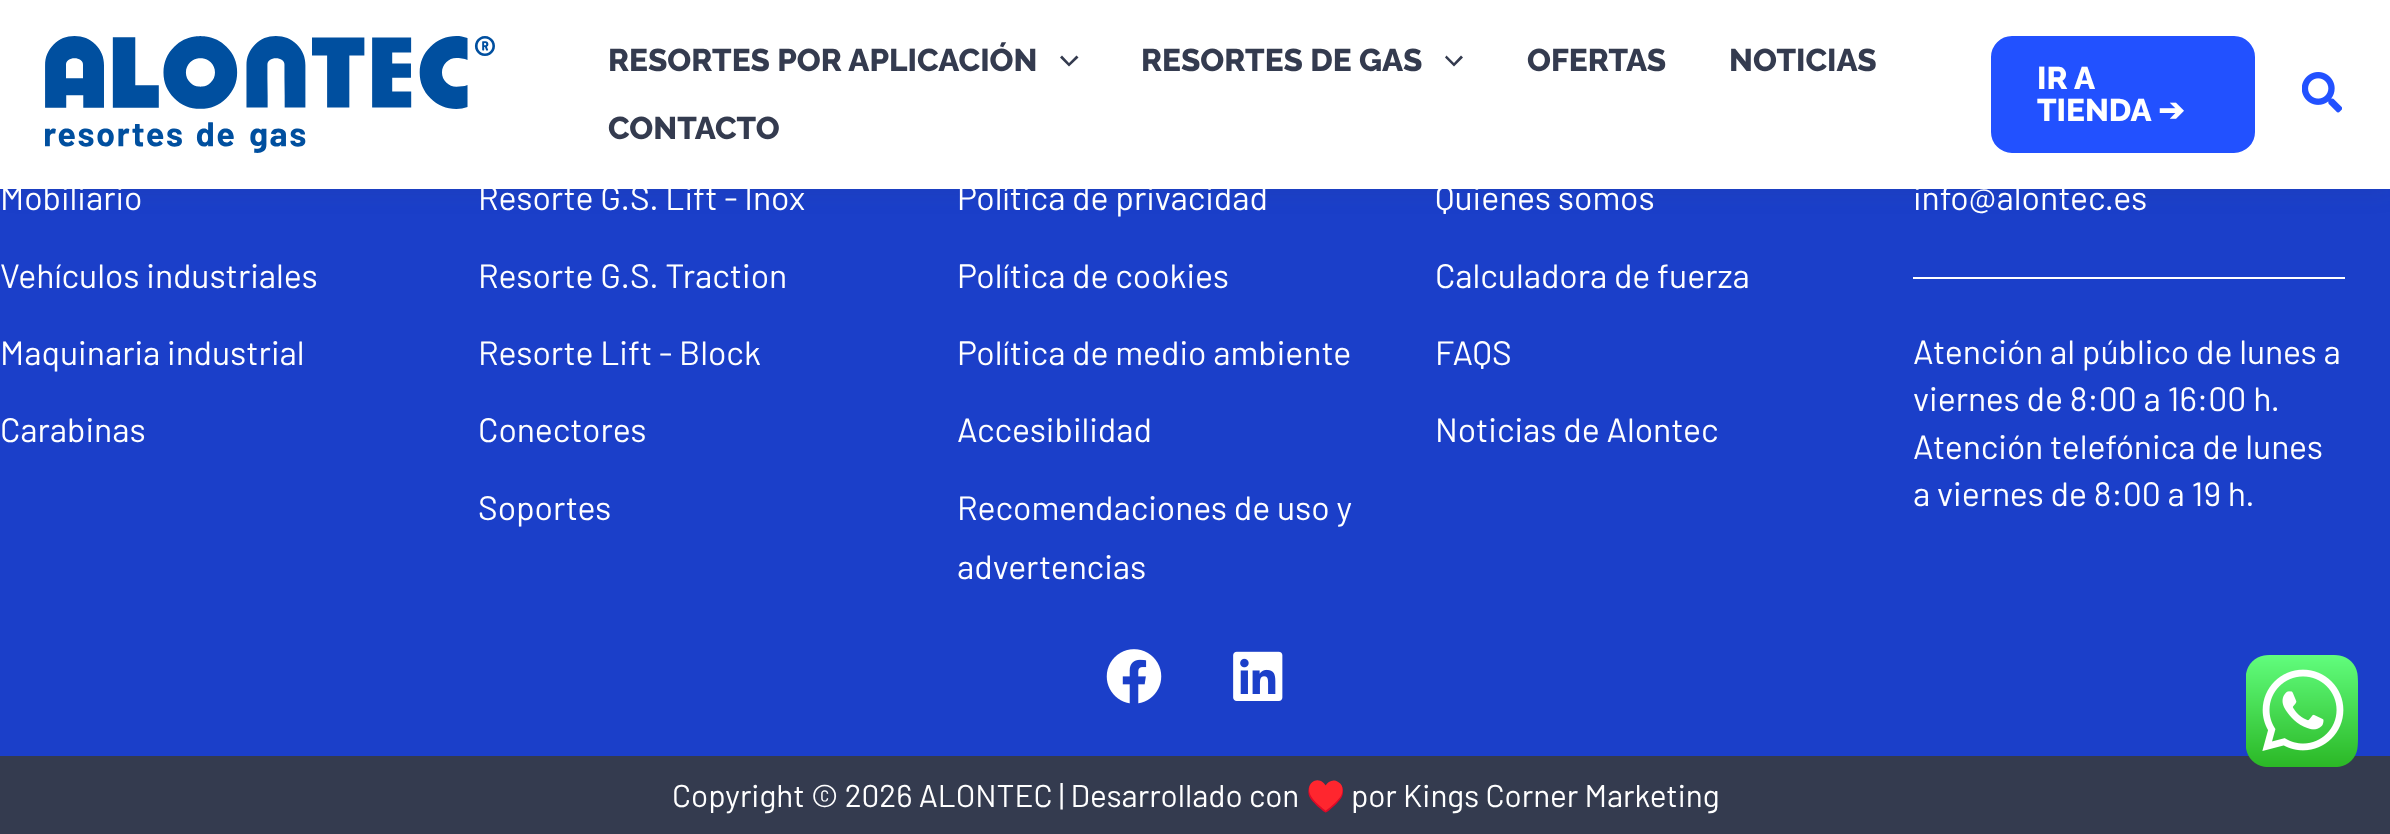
<!DOCTYPE html>
<meta charset="utf-8">
<style>body { margin: 0 } canvas { display: block }</style>
<canvas id="canvas" width="2390" height="834"></canvas>
<script type="module">
  const canvas = document.getElementById("canvas");
  const ctx = canvas.getContext("2d");
  ctx.miterLimit = 4;
  ctx.fontKerning = "normal";
  async function loadImage(src) {
    const img = new Image();
    img.src = src;
    await img.decode();
    return img;
  }

  ctx.fillStyle = "#1b3fc9";
  ctx.fillRect(0, 0, 2390, 834);
  ctx.fillStyle = "rgba(36, 50, 66, 0.07)";
  ctx.filter = "blur(11px)";
  ctx.beginPath();
  ctx.rect(0, 5, 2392, 189);
  ctx.fill();
  ctx.filter = "none";
  ctx.fillStyle = "#ffffff";
  ctx.fillRect(0, 0, 2390, 189);
  ctx.drawImage(await loadImage("img1.png"), 45, 36, 450, 117);
  ctx.font = "800 31.5px Raleway";
  ctx.fillStyle = "#343b4f";
  ctx.fillText("RESORTES POR APLICACIÓN", 608, 71);
  ctx.beginPath();
  ctx.moveTo(1060, 57.5);
  ctx.lineTo(1069, 66.5);
  ctx.lineTo(1078.5, 57.5);
  ctx.lineTo(1076.5, 55.5);
  ctx.lineTo(1069, 63);
  ctx.lineTo(1062, 55.5);
  ctx.closePath();
  ctx.fill();
  ctx.fillText("RESORTES DE GAS", 1141, 71);
  ctx.beginPath();
  ctx.moveTo(1445, 57.5);
  ctx.lineTo(1454, 66.5);
  ctx.lineTo(1463, 57.5);
  ctx.lineTo(1461, 55.5);
  ctx.lineTo(1454, 63);
  ctx.lineTo(1446.5, 55.5);
  ctx.closePath();
  ctx.fill();
  ctx.fillText("OFERTAS", 1527, 71);
  ctx.fillText("NOTICIAS", 1729, 71);
  ctx.fillText("CONTACTO", 608, 139);
  ctx.fillStyle = "#2251ff";
  ctx.beginPath();
  ctx.roundRect(1990, 35, 266, 119, 22);
  ctx.fill();
  ctx.strokeStyle = "#ffffff";
  ctx.lineWidth = 2;
  ctx.stroke();
  ctx.fillStyle = "#ffffff";
  ctx.fillText("IR A", 2037, 89);
  ctx.fillText("TIENDA", 2037, 121);
  ctx.font = "bold 31.5px DejaVu Sans";
  ctx.fillText("➔", 2158, 121);
  ctx.drawImage(await loadImage("img2.png"), 2302, 72, 40, 41);
  ctx.font = "33.75px Barlow";
  ctx.fillText("Mobiliario", 0, 210);
  ctx.fillText("Vehículos industriales", 0, 288);
  ctx.fillText("Maquinaria industrial", 0, 365);
  ctx.fillText("Carabinas", 0, 442);
  ctx.fillText("Resorte G.S. Lift - Inox", 478, 210);
  ctx.fillText("Resorte G.S. Traction", 478, 288);
  ctx.fillText("Resorte Lift - Block", 478, 365);
  ctx.fillText("Conectores", 478, 442);
  ctx.fillText("Soportes", 478, 520);
  ctx.fillText("Política de privacidad", 957, 210);
  ctx.fillText("Política de cookies", 957, 288);
  ctx.fillText("Política de medio ambiente", 957, 365);
  ctx.fillText("Accesibilidad", 957, 442);
  ctx.fillText("Recomendaciones de uso y", 957, 520);
  ctx.fillText("advertencias", 957, 579);
  ctx.fillText("Quienes somos", 1435, 210);
  ctx.fillText("Calculadora de fuerza", 1435, 288);
  ctx.fillText("FAQS", 1435, 365);
  ctx.fillText("Noticias de Alontec", 1435, 442);
  ctx.fillText("info@alontec.es", 1913, 210);
  ctx.fillRect(1913, 277, 432, 2);
  ctx.fillText("Atención al público de lunes a", 1913, 364);
  ctx.fillText("viernes de 8:00 a 16:00 h.", 1913, 411);
  ctx.fillText("Atención telefónica de lunes", 1913, 459);
  ctx.fillText("a viernes de 8:00 a 19 h.", 1913, 506);
  ctx.drawImage(await loadImage("img3.png"), 1106, 649, 56, 55);
  ctx.drawImage(await loadImage("img4.png"), 1233, 651, 50, 50);
  ctx.fillStyle = "#343b4f";
  ctx.fillRect(0, 756, 2390, 78);
  ctx.font = "31.5px Barlow";
  ctx.fillStyle = "#ffffff";
  ctx.fillText("Copyright © 2026 ALONTEC | Desarrollado con", 672, 807);
  ctx.font = "31.5px Noto Color Emoji";
  ctx.fillText("♥️", 1306, 807);
  ctx.font = "31.5px Barlow";
  ctx.fillText("por Kings Corner Marketing", 1351, 807);
  ctx.drawImage(await loadImage("img5.png"), 2246, 655, 112, 112);
</script>
